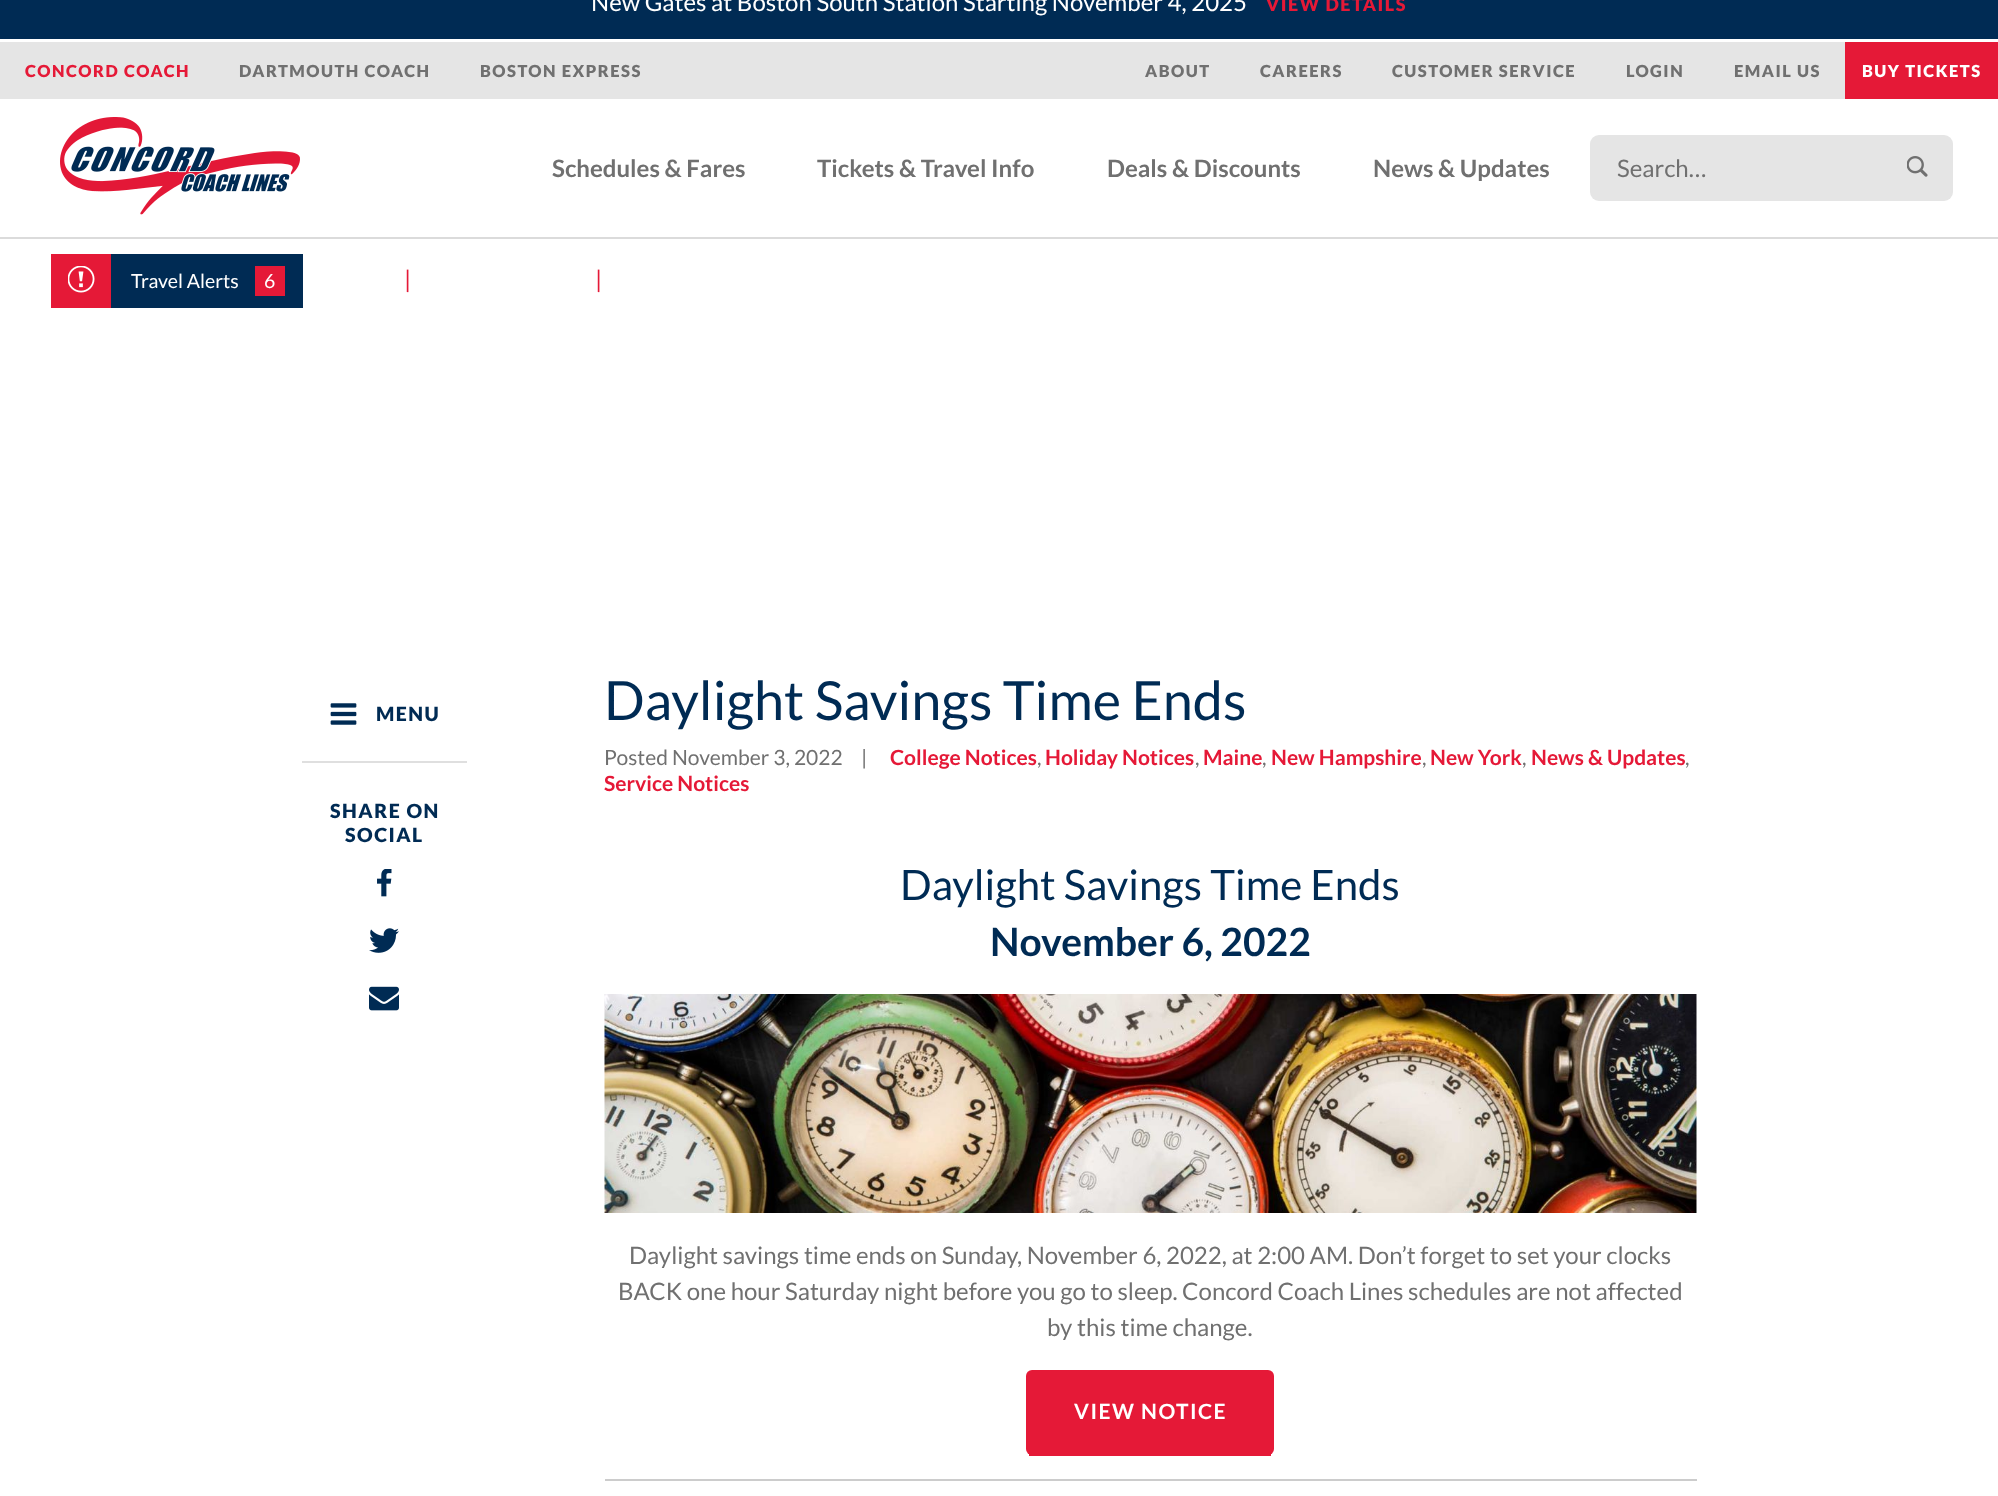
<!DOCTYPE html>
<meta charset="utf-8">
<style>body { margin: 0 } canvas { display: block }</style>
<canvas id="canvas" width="1998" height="1496"></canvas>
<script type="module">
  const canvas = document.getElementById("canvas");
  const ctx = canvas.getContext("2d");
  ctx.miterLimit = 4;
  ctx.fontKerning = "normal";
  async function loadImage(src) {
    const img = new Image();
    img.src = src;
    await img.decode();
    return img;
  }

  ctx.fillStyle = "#ffffff";
  ctx.fillRect(0, 0, 1998, 1496);
  ctx.fillStyle = "#002b54";
  ctx.fillRect(0, 0, 1998, 39);
  ctx.font = "24px Lato";
  ctx.fillStyle = "#ffffff";
  ctx.fillText("New Gates at Boston South Station Starting November 4, 2025", 591, 11);
  ctx.letterSpacing = "1.5px";
  ctx.font = "900 18px Lato";
  ctx.fillStyle = "#e51937";
  ctx.fillText("VIEW DETAILS", 1266, 11);
  ctx.fillStyle = "#dbdbdb";
  ctx.fillRect(0, 237, 1998, 2);
  ctx.fillStyle = "#e5e5e5";
  ctx.fillRect(0, 42, 1845, 57);
  ctx.font = "900 16.5px Lato";
  ctx.fillStyle = "#e51937";
  ctx.fillText("CONCORD COACH", 25, 77);
  ctx.fillStyle = "#707070";
  ctx.fillText("DARTMOUTH COACH", 239, 77);
  ctx.fillText("BOSTON EXPRESS", 480, 77);
  ctx.fillText("ABOUT", 1145, 77);
  ctx.fillText("CAREERS", 1260, 77);
  ctx.fillText("CUSTOMER SERVICE", 1392, 77);
  ctx.fillText("LOGIN", 1626, 77);
  ctx.fillText("EMAIL US", 1734, 77);
  ctx.fillStyle = "#e51937";
  ctx.fillRect(1845, 42, 153, 57);
  ctx.fillStyle = "#ffffff";
  ctx.fillText("BUY TICKETS", 1862, 77);
  ctx.drawImage(await loadImage("img1.png"), 60, 117, 240, 98);
  ctx.letterSpacing = "0px";
  ctx.font = "bold 24px Lato";
  ctx.fillStyle = "#707070";
  ctx.fillText("Schedules & Fares", 552, 177);
  ctx.fillText("Tickets & Travel Info", 817, 177);
  ctx.fillText("Deals & Discounts", 1107, 177);
  ctx.fillText("News & Updates", 1373, 177);
  ctx.fillStyle = "#e5e5e5";
  ctx.beginPath();
  ctx.roundRect(1590, 135, 363, 66, 9);
  ctx.fill();
  ctx.font = "24px Lato";
  ctx.fillStyle = "#707070";
  ctx.fillText("Search…", 1617, 177);
  ctx.drawImage(await loadImage("img2.png"), 1907, 156, 21, 21);
  ctx.fillStyle = "#002b54";
  ctx.fillRect(111, 254, 192, 54);
  ctx.fillStyle = "#e51937";
  ctx.fillRect(51, 254, 60, 54);
  ctx.drawImage(await loadImage("img3.png"), 68, 266, 27, 27);
  ctx.font = "19.5px Lato";
  ctx.fillStyle = "#ffffff";
  ctx.fillText("Travel Alerts", 131, 288);
  ctx.fillStyle = "#e51937";
  ctx.fillRect(255, 266, 30, 30);
  ctx.fillStyle = "#ffffff";
  ctx.fillText("6", 264, 288);
  ctx.font = "24px Lato";
  ctx.fillStyle = "#e51937";
  ctx.fillText("|", 404, 288);
  ctx.fillText("|", 595, 288);
  ctx.drawImage(await loadImage("img4.png"), 330, 703, 27, 22);
  ctx.letterSpacing = "1.5px";
  ctx.font = "900 19.5px Lato";
  ctx.fillStyle = "#002b54";
  ctx.fillText("MENU", 376, 721);
  ctx.fillStyle = "#dfdfdf";
  ctx.fillRect(302, 761, 165, 2);
  ctx.fillStyle = "#002b54";
  ctx.fillText("SHARE ON", 330, 818);
  ctx.fillText("SOCIAL", 345, 842);
  ctx.drawImage(await loadImage("img5.png"), 377, 869, 15, 28);
  ctx.drawImage(await loadImage("img6.png"), 369, 928, 30, 25);
  ctx.drawImage(await loadImage("img7.png"), 369, 986, 30, 25);
  ctx.letterSpacing = "0px";
  ctx.font = "54px Lato";
  ctx.fillText("Daylight Savings Time Ends", 604, 720);
  ctx.font = "21px Lato";
  ctx.fillStyle = "#707070";
  ctx.fillText("Posted November 3, 2022", 604, 765);
  ctx.fillText("|", 861, 765);
  ctx.font = "bold 21px Lato";
  ctx.fillStyle = "#e51937";
  ctx.fillText("College Notices", 890, 765);
  ctx.font = "21px Lato";
  ctx.fillStyle = "#707070";
  ctx.fillText(",", 1037, 765);
  ctx.font = "bold 21px Lato";
  ctx.fillStyle = "#e51937";
  ctx.fillText("Holiday Notices", 1045, 765);
  ctx.font = "21px Lato";
  ctx.fillStyle = "#707070";
  ctx.fillText(",", 1195, 765);
  ctx.font = "bold 21px Lato";
  ctx.fillStyle = "#e51937";
  ctx.fillText("Maine", 1203, 765);
  ctx.font = "21px Lato";
  ctx.fillStyle = "#707070";
  ctx.fillText(",", 1262, 765);
  ctx.font = "bold 21px Lato";
  ctx.fillStyle = "#e51937";
  ctx.fillText("New Hampshire", 1271, 765);
  ctx.font = "21px Lato";
  ctx.fillStyle = "#707070";
  ctx.fillText(",", 1422, 765);
  ctx.font = "bold 21px Lato";
  ctx.fillStyle = "#e51937";
  ctx.fillText("New York", 1430, 765);
  ctx.font = "21px Lato";
  ctx.fillStyle = "#707070";
  ctx.fillText(",", 1522, 765);
  ctx.font = "bold 21px Lato";
  ctx.fillStyle = "#e51937";
  ctx.fillText("News & Updates", 1531, 765);
  ctx.font = "21px Lato";
  ctx.fillStyle = "#707070";
  ctx.fillText(",", 1685, 765);
  ctx.font = "bold 21px Lato";
  ctx.fillStyle = "#e51937";
  ctx.fillText("Service Notices", 604, 791);
  ctx.font = "42px Lato";
  ctx.fillStyle = "#002b54";
  ctx.fillText("Daylight Savings Time Ends", 900, 900);
  ctx.font = "bold 39px Lato";
  ctx.fillText("November 6, 2022", 990, 956);
  ctx.drawImage(await loadImage("img8.png"), 604, 994, 1093, 219);
  ctx.font = "24px Lato";
  ctx.fillStyle = "#707070";
  ctx.fillText("Daylight savings time ends on Sunday, November 6, 2022, at 2:00 AM. Don’t forget to set your clocks", 629, 1264);
  ctx.fillText("BACK one hour Saturday night before you go to sleep. Concord Coach Lines schedules are not affected", 618, 1300);
  ctx.fillText("by this time change.", 1047, 1336);
  ctx.fillStyle = "#e51937";
  ctx.beginPath();
  ctx.roundRect(1026, 1370, 248, 85, 6);
  ctx.fill();
  ctx.fillRect(1029, 1454, 242, 2);
  ctx.letterSpacing = "1.5px";
  ctx.font = "bold 21px Lato";
  ctx.fillStyle = "#ffffff";
  ctx.fillText("VIEW NOTICE", 1074, 1419);
  ctx.fillStyle = "#cccccc";
  ctx.fillRect(605, 1479, 1092, 2);
</script>
